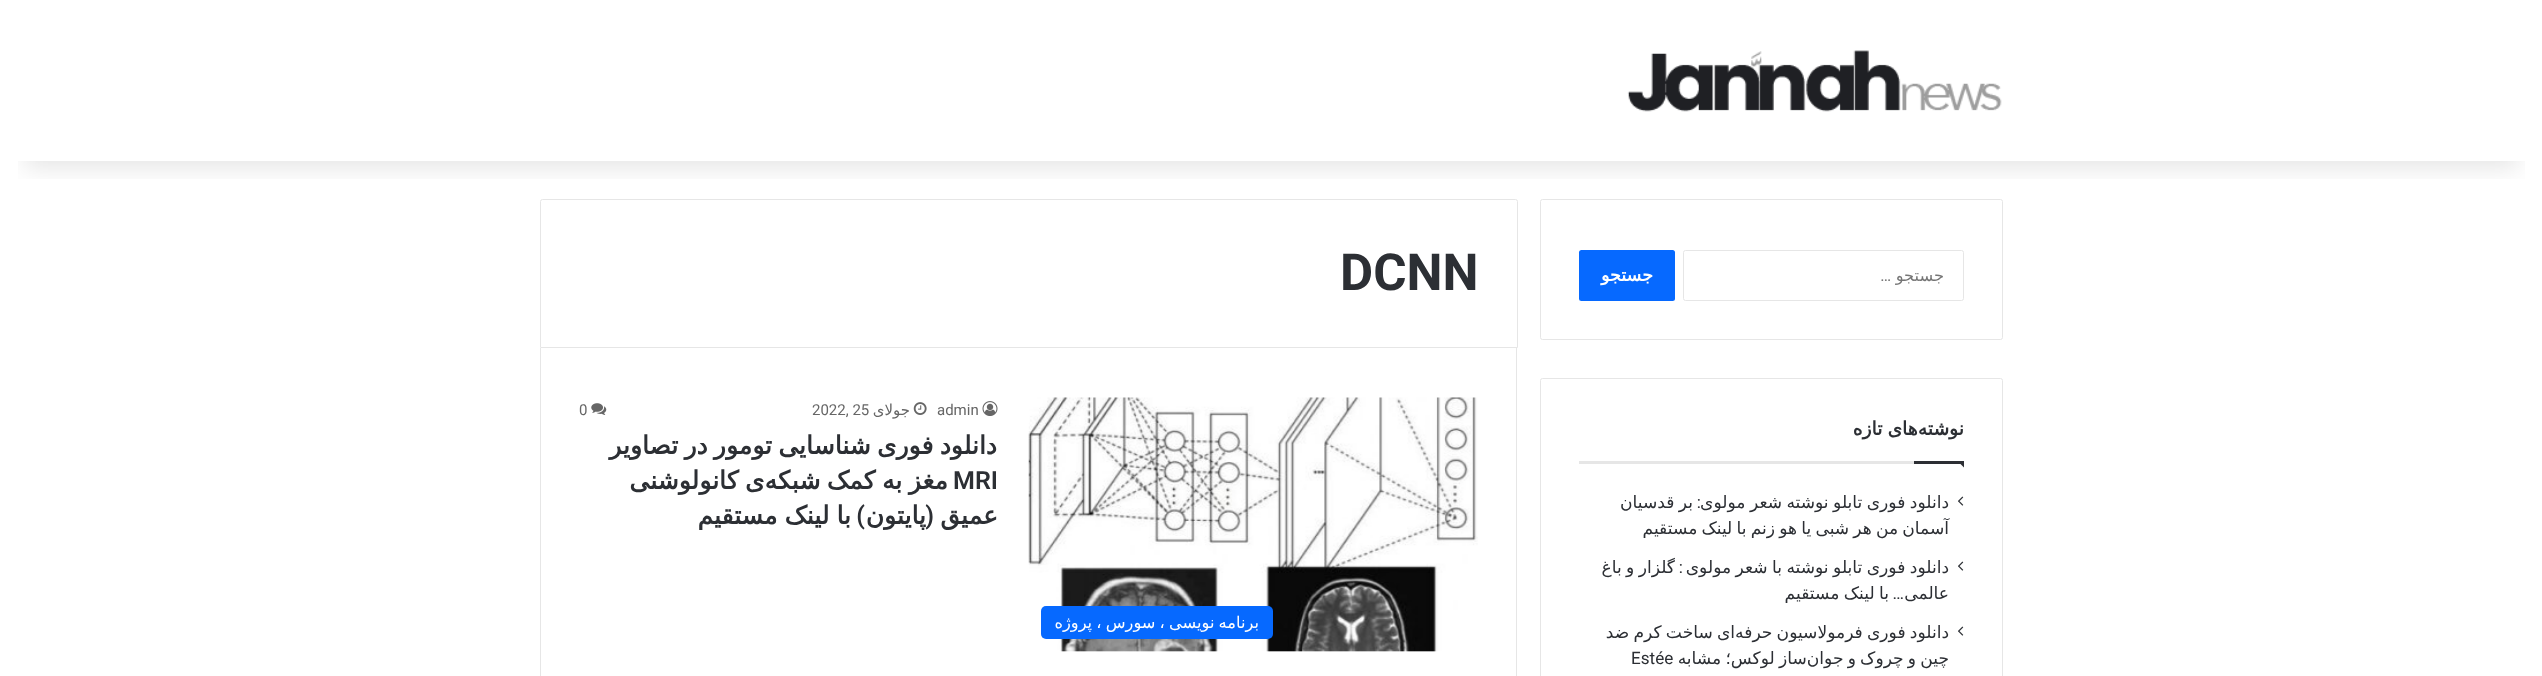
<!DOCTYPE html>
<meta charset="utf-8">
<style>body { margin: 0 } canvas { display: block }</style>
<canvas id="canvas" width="2542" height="676"></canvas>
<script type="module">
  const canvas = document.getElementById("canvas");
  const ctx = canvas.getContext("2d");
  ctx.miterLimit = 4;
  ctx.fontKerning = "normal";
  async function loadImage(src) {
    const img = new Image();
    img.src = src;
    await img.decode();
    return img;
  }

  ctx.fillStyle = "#ffffff";
  ctx.fillRect(0, 0, 2542, 676);
  ctx.beginPath();
  ctx.roundRect(1540.5, 199.5, 462, 140, 2);
  ctx.strokeStyle = "#e6e6e6";
  ctx.stroke();
  ctx.beginPath();
  ctx.roundRect(540.5, 199.5, 977, 148, [2, 2, 0, 0]);
  ctx.stroke();
  ctx.save();
  ctx.beginPath();
  ctx.rect(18, 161, 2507, 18);
  ctx.clip();
  ctx.fillStyle = "rgba(0, 0, 0, 0.1)";
  ctx.filter = "blur(12.5px)";
  ctx.beginPath();
  ctx.rect(25, 56, 2493, 112);
  ctx.fill();
  ctx.filter = "none";
  ctx.restore();
  ctx.drawImage(await loadImage("img1.png"), 1627, 50, 375, 62);
  ctx.beginPath();
  ctx.roundRect(1683.5, 250.5, 280, 50, 2);
  ctx.stroke();
  ctx.direction = "rtl";
  ctx.font = "16.25px DejaVu Sans";
  ctx.fillStyle = "#757575";
  ctx.fillText("جستجو", 1944, 281);
  ctx.font = "16.25px Roboto";
  ctx.fillText("…", 1891, 281);
  ctx.fillStyle = "#0669ff";
  ctx.beginPath();
  ctx.roundRect(1579, 250, 96, 51, 2.5);
  ctx.fill();
  ctx.font = "bold 17.5px DejaVu Sans";
  ctx.fillStyle = "#ffffff";
  ctx.fillText("جستجو", 1653, 281);
  ctx.beginPath();
  ctx.roundRect(1540.5, 378.5, 462, 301, 2);
  ctx.stroke();
  ctx.fillStyle = "#e6e6e6";
  ctx.fillRect(1579, 461, 335, 3);
  ctx.wordSpacing = "-1px";
  ctx.font = "bold 18.75px DejaVu Sans";
  ctx.fillStyle = "#2c2f34";
  ctx.fillText("نوشته‌های تازه", 1964, 435);
  ctx.beginPath();
  ctx.moveTo(1957.5, 461);
  ctx.lineTo(1964, 461);
  ctx.lineTo(1964, 467.5);
  ctx.closePath();
  ctx.fill();
  ctx.fillRect(1914, 461, 50, 3);
  ctx.drawImage(await loadImage("img2.png"), 1958, 496, 6, 10);
  ctx.font = "17.1px DejaVu Sans";
  ctx.fillText("دانلود فوری تابلو نوشته شعر مولوی", 1949, 508);
  ctx.wordSpacing = "0px";
  ctx.font = "17.1px Roboto";
  ctx.fillText(":", 1701, 508);
  ctx.wordSpacing = "-1px";
  ctx.font = "17.1px DejaVu Sans";
  ctx.fillText("بر قدسیان", 1693, 508);
  ctx.wordSpacing = "-1.25px";
  ctx.fillText("آسمان من هر شبی یا هو زنم با لینک مستقیم", 1949, 534);
  ctx.drawImage(await loadImage("img2.png"), 1958, 561, 6, 10);
  ctx.wordSpacing = "-1px";
  ctx.fillText("دانلود فوری تابلو نوشته با شعر مولوی", 1949, 573);
  ctx.wordSpacing = "0px";
  ctx.font = "17.1px Roboto";
  ctx.fillText(":", 1683, 573);
  ctx.wordSpacing = "-1px";
  ctx.font = "17.1px DejaVu Sans";
  ctx.fillText("گلزار و باغ", 1675, 573);
  ctx.wordSpacing = "0px";
  ctx.fillText("عالمی", 1949, 599);
  ctx.font = "17.1px Roboto";
  ctx.fillText("…", 1904, 599);
  ctx.wordSpacing = "-1px";
  ctx.font = "17.1px DejaVu Sans";
  ctx.fillText("با لینک مستقیم", 1889, 599);
  ctx.drawImage(await loadImage("img2.png"), 1958, 626, 6, 10);
  ctx.wordSpacing = "-1.25px";
  ctx.fillText("دانلود فوری فرمولاسیون حرفه‌ای ساخت کرم ضد", 1949, 638);
  ctx.fillText("چین و چروک و جوان‌ساز لوکس؛ مشابه", 1949, 664);
  ctx.wordSpacing = "0px";
  ctx.direction = "ltr";
  ctx.font = "17.1px Roboto";
  ctx.fillText("Estée", 1631, 664);
  ctx.font = "bold 51px Roboto";
  ctx.fillText("DCNN", 1340, 290);
  ctx.fillStyle = "#e6e6e6";
  ctx.fillRect(1516, 348, 1, 328);
  ctx.fillRect(540, 348, 1, 328);
  ctx.drawImage(await loadImage("img3.png"), 982, 401, 16, 15);
  ctx.font = "15px Roboto";
  ctx.fillStyle = "#666666";
  ctx.fillText("admin", 937, 415);
  ctx.drawImage(await loadImage("img4.png"), 913, 402, 14, 13);
  ctx.direction = "rtl";
  ctx.font = "15px DejaVu Sans";
  ctx.fillText("جولای", 910, 415);
  ctx.direction = "ltr";
  ctx.font = "15px Roboto";
  ctx.fillText("2022, 25", 812, 415);
  ctx.drawImage(await loadImage("img5.png"), 591, 403, 16, 12);
  ctx.fillText("0", 579, 415);
  ctx.wordSpacing = "-1.75px";
  ctx.direction = "rtl";
  ctx.font = "bold 25px DejaVu Sans";
  ctx.fillStyle = "#2c2f34";
  ctx.fillText("دانلود فوری شناسایی تومور در تصاویر", 997, 454);
  ctx.wordSpacing = "0px";
  ctx.direction = "ltr";
  ctx.font = "600 25px Roboto";
  ctx.fillText("MRI", 953, 489);
  ctx.wordSpacing = "-1.5px";
  ctx.direction = "rtl";
  ctx.font = "bold 25px DejaVu Sans";
  ctx.fillText("مغز به کمک شبکه‌‌ی کانولوشنی", 948, 489);
  ctx.wordSpacing = "0px";
  ctx.fillText("عمیق", 998, 524);
  ctx.font = "600 25px Roboto";
  ctx.fillText("(", 934, 524);
  ctx.font = "bold 25px DejaVu Sans";
  ctx.fillText("پایتون", 926, 524);
  ctx.font = "600 25px Roboto";
  ctx.fillText(")", 865, 524);
  ctx.wordSpacing = "-1px";
  ctx.font = "bold 25px DejaVu Sans";
  ctx.fillText("با لینک مستقیم", 851, 524);
  ctx.drawImage(await loadImage("img6.png"), 1028, 397, 450, 255);
  ctx.fillStyle = "#0669ff";
  ctx.beginPath();
  ctx.roundRect(1041, 606, 232, 33, 5);
  ctx.fill();
  ctx.font = "16.25px DejaVu Sans";
  ctx.fillStyle = "#ffffff";
  ctx.fillText("برنامه نویسی ، سورس ، پروژه", 1259, 628);
</script>
